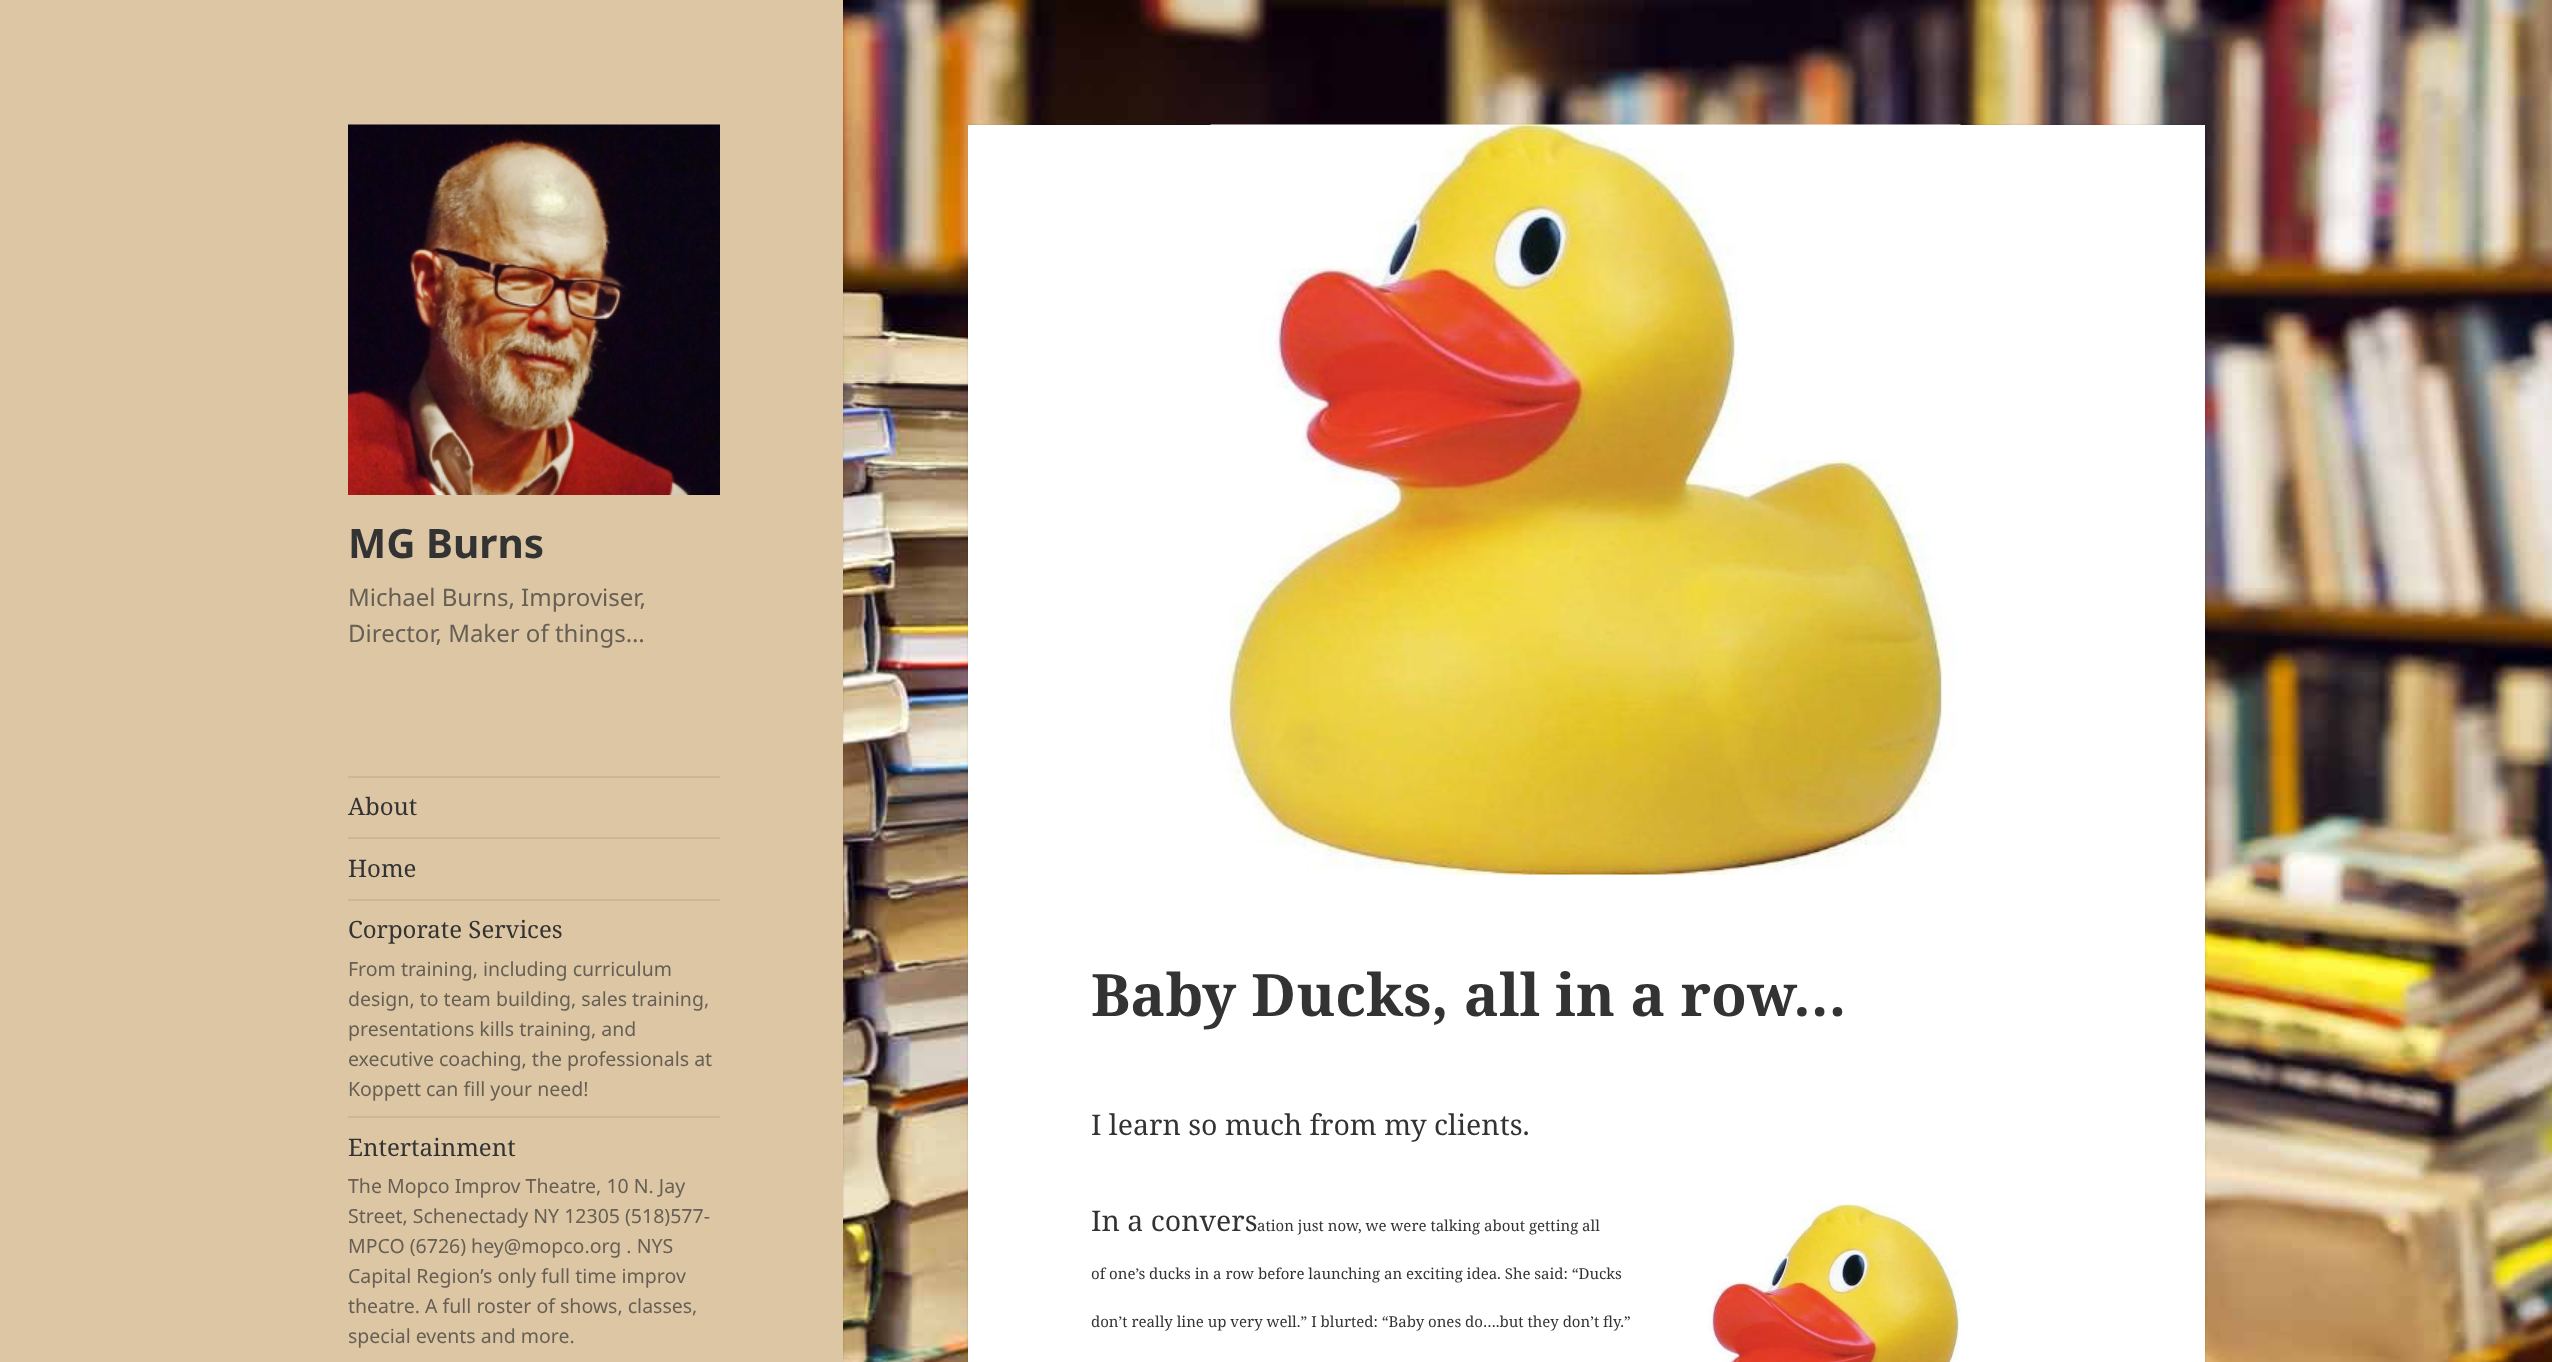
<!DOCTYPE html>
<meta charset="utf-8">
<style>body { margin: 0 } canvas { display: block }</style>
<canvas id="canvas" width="2552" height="1362"></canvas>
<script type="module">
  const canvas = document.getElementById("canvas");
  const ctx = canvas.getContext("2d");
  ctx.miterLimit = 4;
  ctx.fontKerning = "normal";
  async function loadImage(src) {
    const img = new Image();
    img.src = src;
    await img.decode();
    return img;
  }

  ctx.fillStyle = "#ffffff";
  ctx.fillRect(0, 0, 2552, 1362);
  ctx.drawImage(await loadImage("img1.png"), 843, 0, 1709, 1362);
  ctx.fillStyle = "rgba(0, 0, 0, 0.15)";
  ctx.filter = "blur(1px)";
  ctx.beginPath();
  ctx.rect(0, 0, 843, 1362);
  ctx.fill();
  ctx.filter = "none";
  ctx.fillStyle = "#ddc6a4";
  ctx.fillRect(0, 0, 843, 1362);
  ctx.drawImage(await loadImage("img2.png"), 348, 124, 372, 371);
  ctx.font = "bold 40.5px Noto Sans";
  ctx.fillStyle = "#333333";
  ctx.fillText("MG Burns", 348, 558);
  ctx.font = "24px Noto Sans";
  ctx.fillStyle = "#665f55";
  ctx.fillText("Michael Burns, Improviser,", 348, 606);
  ctx.fillText("Director, Maker of things…", 348, 642);
  ctx.fillStyle = "#ccb799";
  ctx.fillRect(348, 776, 372, 2);
  ctx.font = "24px Noto Serif";
  ctx.fillStyle = "#333333";
  ctx.fillText("About", 348, 815);
  ctx.fillStyle = "#ccb799";
  ctx.fillRect(348, 837, 372, 2);
  ctx.fillStyle = "#333333";
  ctx.fillText("Home", 348, 877);
  ctx.fillStyle = "#ccb799";
  ctx.fillRect(348, 899, 372, 2);
  ctx.fillStyle = "#333333";
  ctx.fillText("Corporate Services", 348, 938);
  ctx.font = "19.5px Noto Sans";
  ctx.fillStyle = "#665f55";
  ctx.fillText("From training, including curriculum", 348, 976);
  ctx.fillText("design, to team building, sales training,", 348, 1006);
  ctx.fillText("presentations kills training, and", 348, 1036);
  ctx.fillText("executive coaching, the professionals at", 348, 1066);
  ctx.fillText("Koppett can fill your need!", 348, 1096);
  ctx.fillStyle = "#ccb799";
  ctx.fillRect(348, 1116, 372, 2);
  ctx.font = "24px Noto Serif";
  ctx.fillStyle = "#333333";
  ctx.fillText("Entertainment", 348, 1156);
  ctx.font = "19.5px Noto Sans";
  ctx.fillStyle = "#665f55";
  ctx.fillText("The Mopco Improv Theatre, 10 N. Jay", 348, 1193);
  ctx.fillText("Street, Schenectady NY 12305 (518)577-", 348, 1223);
  ctx.fillText("MPCO (6726) hey@mopco.org . NYS", 348, 1253);
  ctx.fillText("Capital Region’s only full time improv", 348, 1283);
  ctx.fillText("theatre. A full roster of shows, classes,", 348, 1313);
  ctx.fillText("special events and more.", 348, 1343);
  ctx.fillStyle = "rgba(0, 0, 0, 0.15)";
  ctx.filter = "blur(1px)";
  ctx.beginPath();
  ctx.rect(968, 125, 1237, 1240);
  ctx.fill();
  ctx.filter = "none";
  ctx.fillStyle = "#ffffff";
  ctx.fillRect(968, 125, 1237, 1237);
  ctx.drawImage(await loadImage("img3.png"), 1210, 124, 751, 751);
  ctx.font = "bold 58.5px Noto Serif";
  ctx.fillStyle = "#333333";
  ctx.fillText("Baby Ducks, all in a row…", 1091, 1016);
  ctx.font = "28.5px Noto Serif";
  ctx.fillText("I learn so much from my clients.", 1091, 1135);
  ctx.fillText("In a convers", 1091, 1231);
  ctx.font = "15px Noto Serif";
  ctx.fillText("ation just now, we were talking about getting all", 1257, 1231);
  ctx.drawImage(await loadImage("img4.png"), 1708, 1204, 253, 158);
  ctx.fillText("of one’s ducks in a row before launching an exciting idea. She said: “Ducks", 1091, 1279);
  ctx.fillText("don’t really line up very well.” I blurted: “Baby ones do….but they don’t fly.”", 1091, 1327);
</script>
